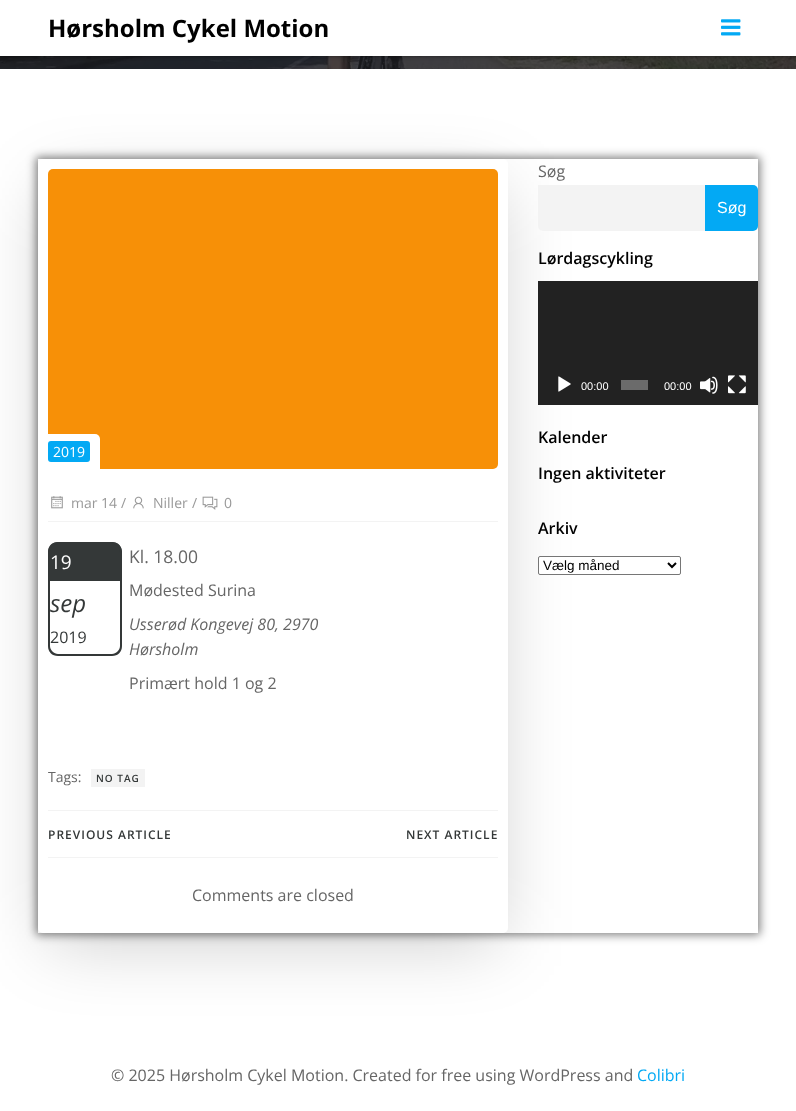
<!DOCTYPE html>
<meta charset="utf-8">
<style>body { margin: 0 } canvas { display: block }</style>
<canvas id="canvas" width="796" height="1111"></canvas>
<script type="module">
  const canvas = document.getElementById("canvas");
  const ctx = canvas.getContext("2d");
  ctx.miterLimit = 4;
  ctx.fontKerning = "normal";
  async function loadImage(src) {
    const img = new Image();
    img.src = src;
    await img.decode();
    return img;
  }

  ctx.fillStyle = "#ffffff";
  ctx.fillRect(0, 0, 796, 1111);
  ctx.drawImage(await loadImage("img2.png"), 0, 56, 796, 13);
  ctx.fillStyle = "rgba(0, 0, 0, 0.5)";
  ctx.filter = "blur(2px)";
  ctx.beginPath();
  ctx.rect(0, 0, 796, 56);
  ctx.fill();
  ctx.filter = "none";
  ctx.fillStyle = "#ffffff";
  ctx.fillRect(0, 0, 796, 56);
  ctx.font = "bold 24px Open Sans";
  ctx.fillStyle = "#000000";
  ctx.fillText("Hørsholm Cykel Motion", 48, 37);
  ctx.drawImage(await loadImage("img1.png"), 721, 19, 20, 17);
  ctx.save();
  ctx.beginPath();
  ctx.moveTo(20, 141);
  ctx.lineTo(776, 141);
  ctx.lineTo(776, 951);
  ctx.lineTo(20, 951);
  ctx.closePath();
  ctx.moveTo(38, 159);
  ctx.lineTo(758, 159);
  ctx.lineTo(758, 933);
  ctx.lineTo(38, 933);
  ctx.closePath();
  ctx.clip("evenodd");
  ctx.fillStyle = "rgba(0, 0, 0, 0.5)";
  ctx.filter = "blur(5px)";
  ctx.beginPath();
  ctx.rect(36, 157, 724, 778);
  ctx.fill();
  ctx.filter = "none";
  ctx.restore();
  ctx.fillStyle = "rgba(0, 0, 0, 0.2)";
  ctx.filter = "blur(35.5px)";
  ctx.beginPath();
  ctx.rect(48, 188, 450, 754);
  ctx.fill();
  ctx.filter = "none";
  ctx.font = "16px Open Sans";
  ctx.fillStyle = "#666666";
  ctx.fillText("Søg", 538, 177);
  ctx.fillStyle = "#f3f3f3";
  ctx.beginPath();
  ctx.roundRect(538, 185, 167, 46, [0, 0, 0, 5]);
  ctx.fill();
  ctx.fillStyle = "#03a9f4";
  ctx.beginPath();
  ctx.roundRect(705, 185, 53, 46, [0, 5, 5, 0]);
  ctx.fill();
  ctx.font = "16px Liberation Sans";
  ctx.fillStyle = "#ffffff";
  ctx.fillText("Søg", 717, 213);
  ctx.font = "600 16px Open Sans";
  ctx.fillStyle = "#000000";
  ctx.fillText("Lørdagscykling", 538, 264);
  ctx.fillStyle = "#222222";
  ctx.fillRect(538, 281, 220, 124);
  ctx.drawImage(await loadImage("img3.png"), 558, 376, 13, 16);
  ctx.font = "11px Liberation Sans";
  ctx.fillStyle = "#ffffff";
  ctx.fillText("00:00", 581, 390);
  ctx.fillStyle = "#6b6b6b";
  ctx.fillRect(621, 380, 27, 10);
  ctx.fillStyle = "#ffffff";
  ctx.fillText("00:00", 664, 390);
  ctx.drawImage(await loadImage("img4.png"), 700, 376, 18, 18);
  ctx.drawImage(await loadImage("img5.png"), 728, 375, 18, 19);
  ctx.font = "600 16px Open Sans";
  ctx.fillStyle = "#000000";
  ctx.fillText("Kalender", 538, 443);
  ctx.fillText("Ingen aktiviteter", 538, 479);
  ctx.fillText("Arkiv", 538, 534);
  ctx.fillStyle = "#ffffff";
  ctx.beginPath();
  ctx.roundRect(538.5, 556.5, 142, 18, 1.5);
  ctx.fill();
  ctx.strokeStyle = "#767676";
  ctx.stroke();
  ctx.beginPath();
  ctx.moveTo(668, 563);
  ctx.lineTo(672, 567);
  ctx.lineTo(676, 563);
  ctx.strokeStyle = "#000000";
  ctx.lineWidth = 2;
  ctx.stroke();
  ctx.font = "13.5px Liberation Sans";
  ctx.fillStyle = "#000000";
  ctx.fillText("Vælg måned", 543, 570);
  ctx.fillStyle = "#ffffff";
  ctx.beginPath();
  ctx.roundRect(38, 159, 470, 774, 5);
  ctx.fill();
  ctx.fillStyle = "#f79007";
  ctx.beginPath();
  ctx.roundRect(48, 169, 450, 300, 5);
  ctx.fill();
  ctx.fillStyle = "#ffffff";
  ctx.beginPath();
  ctx.roundRect(48, 434, 52, 36, [0, 5, 0, 0]);
  ctx.fill();
  ctx.fillStyle = "#03a9f4";
  ctx.beginPath();
  ctx.roundRect(48, 441, 42, 21, 3);
  ctx.fill();
  ctx.font = "14px Open Sans";
  ctx.fillStyle = "#ffffff";
  ctx.fillText("2019", 53, 457);
  ctx.drawImage(await loadImage("img6.png"), 51, 496, 12, 13);
  ctx.fillStyle = "#999999";
  ctx.fillText("mar 14", 71, 508);
  ctx.fillText("/", 121, 508);
  ctx.drawImage(await loadImage("img7.png"), 133, 496, 11, 13);
  ctx.fillText("Niller", 153, 508);
  ctx.fillText("/", 192, 508);
  ctx.drawImage(await loadImage("img8.png"), 202, 496, 16, 14);
  ctx.fillText("0", 224, 508);
  ctx.fillStyle = "#f3f3f3";
  ctx.fillRect(48, 521, 450, 1);
  ctx.fillStyle = "#343838";
  ctx.beginPath();
  ctx.roundRect(48, 542, 74, 39, [10, 10, 0, 0]);
  ctx.fill();
  ctx.beginPath();
  ctx.moveTo(58, 542);
  ctx.lineTo(112, 542);
  ctx.bezierCurveTo(118, 542, 122, 546, 122, 552);
  ctx.lineTo(122, 581);
  ctx.lineTo(48, 581);
  ctx.lineTo(48, 552);
  ctx.bezierCurveTo(48, 546, 52, 542, 58, 542);
  ctx.closePath();
  ctx.moveTo(58, 544);
  ctx.lineTo(112, 544);
  ctx.bezierCurveTo(116, 544, 120, 548, 120, 552);
  ctx.lineTo(120, 581);
  ctx.lineTo(50, 581);
  ctx.lineTo(50, 552);
  ctx.bezierCurveTo(50, 548, 54, 544, 58, 544);
  ctx.closePath();
  ctx.fill("evenodd");
  ctx.font = "19px Open Sans";
  ctx.fillStyle = "#ffffff";
  ctx.fillText("19", 50, 569);
  ctx.fillStyle = "#343838";
  ctx.beginPath();
  ctx.moveTo(48, 581);
  ctx.lineTo(122, 581);
  ctx.lineTo(122, 646);
  ctx.bezierCurveTo(122, 652, 118, 656, 112, 656);
  ctx.lineTo(58, 656);
  ctx.bezierCurveTo(52, 656, 48, 652, 48, 646);
  ctx.closePath();
  ctx.moveTo(50, 581);
  ctx.lineTo(120, 581);
  ctx.lineTo(120, 646);
  ctx.bezierCurveTo(120, 650, 116, 654, 112, 654);
  ctx.lineTo(58, 654);
  ctx.bezierCurveTo(54, 654, 50, 650, 50, 646);
  ctx.closePath();
  ctx.fill("evenodd");
  ctx.font = "italic 24px Open Sans";
  ctx.fillText("sep", 50, 612);
  ctx.font = "16px Open Sans";
  ctx.fillText("2019", 50, 643);
  ctx.font = "17.5px Open Sans";
  ctx.fillStyle = "#666666";
  ctx.fillText("Kl. 18.00", 129, 563);
  ctx.font = "16px Open Sans";
  ctx.fillText("Mødested Surina", 129, 596);
  ctx.font = "italic 16px Open Sans";
  ctx.fillText("Usserød Kongevej 80, 2970", 129, 630);
  ctx.fillText("Hørsholm", 129, 655);
  ctx.font = "16px Open Sans";
  ctx.fillText("Primært hold 1 og 2", 129, 689);
  ctx.font = "14px Open Sans";
  ctx.fillText("Tags:", 48, 782);
  ctx.fillStyle = "#f3f3f3";
  ctx.fillRect(91, 769, 54, 18);
  ctx.letterSpacing = "1px";
  ctx.font = "600 10px Open Sans";
  ctx.fillStyle = "#343838";
  ctx.fillText("NO TAG", 96, 782);
  ctx.fillStyle = "#f3f3f3";
  ctx.fillRect(48, 810, 450, 1);
  ctx.fillRect(48, 857, 450, 1);
  ctx.font = "600 12px Open Sans";
  ctx.fillStyle = "#343838";
  ctx.fillText("PREVIOUS ARTICLE", 48, 839);
  ctx.fillText("NEXT ARTICLE", 406, 839);
  ctx.letterSpacing = "0px";
  ctx.font = "16px Open Sans";
  ctx.fillStyle = "#666666";
  ctx.fillText("Comments are closed", 192, 901);
  ctx.fillText("© 2025 Hørsholm Cykel Motion. Created for free using WordPress and", 111, 1081);
  ctx.fillStyle = "#03a9f4";
  ctx.fillText("Colibri", 637, 1081);
</script>
